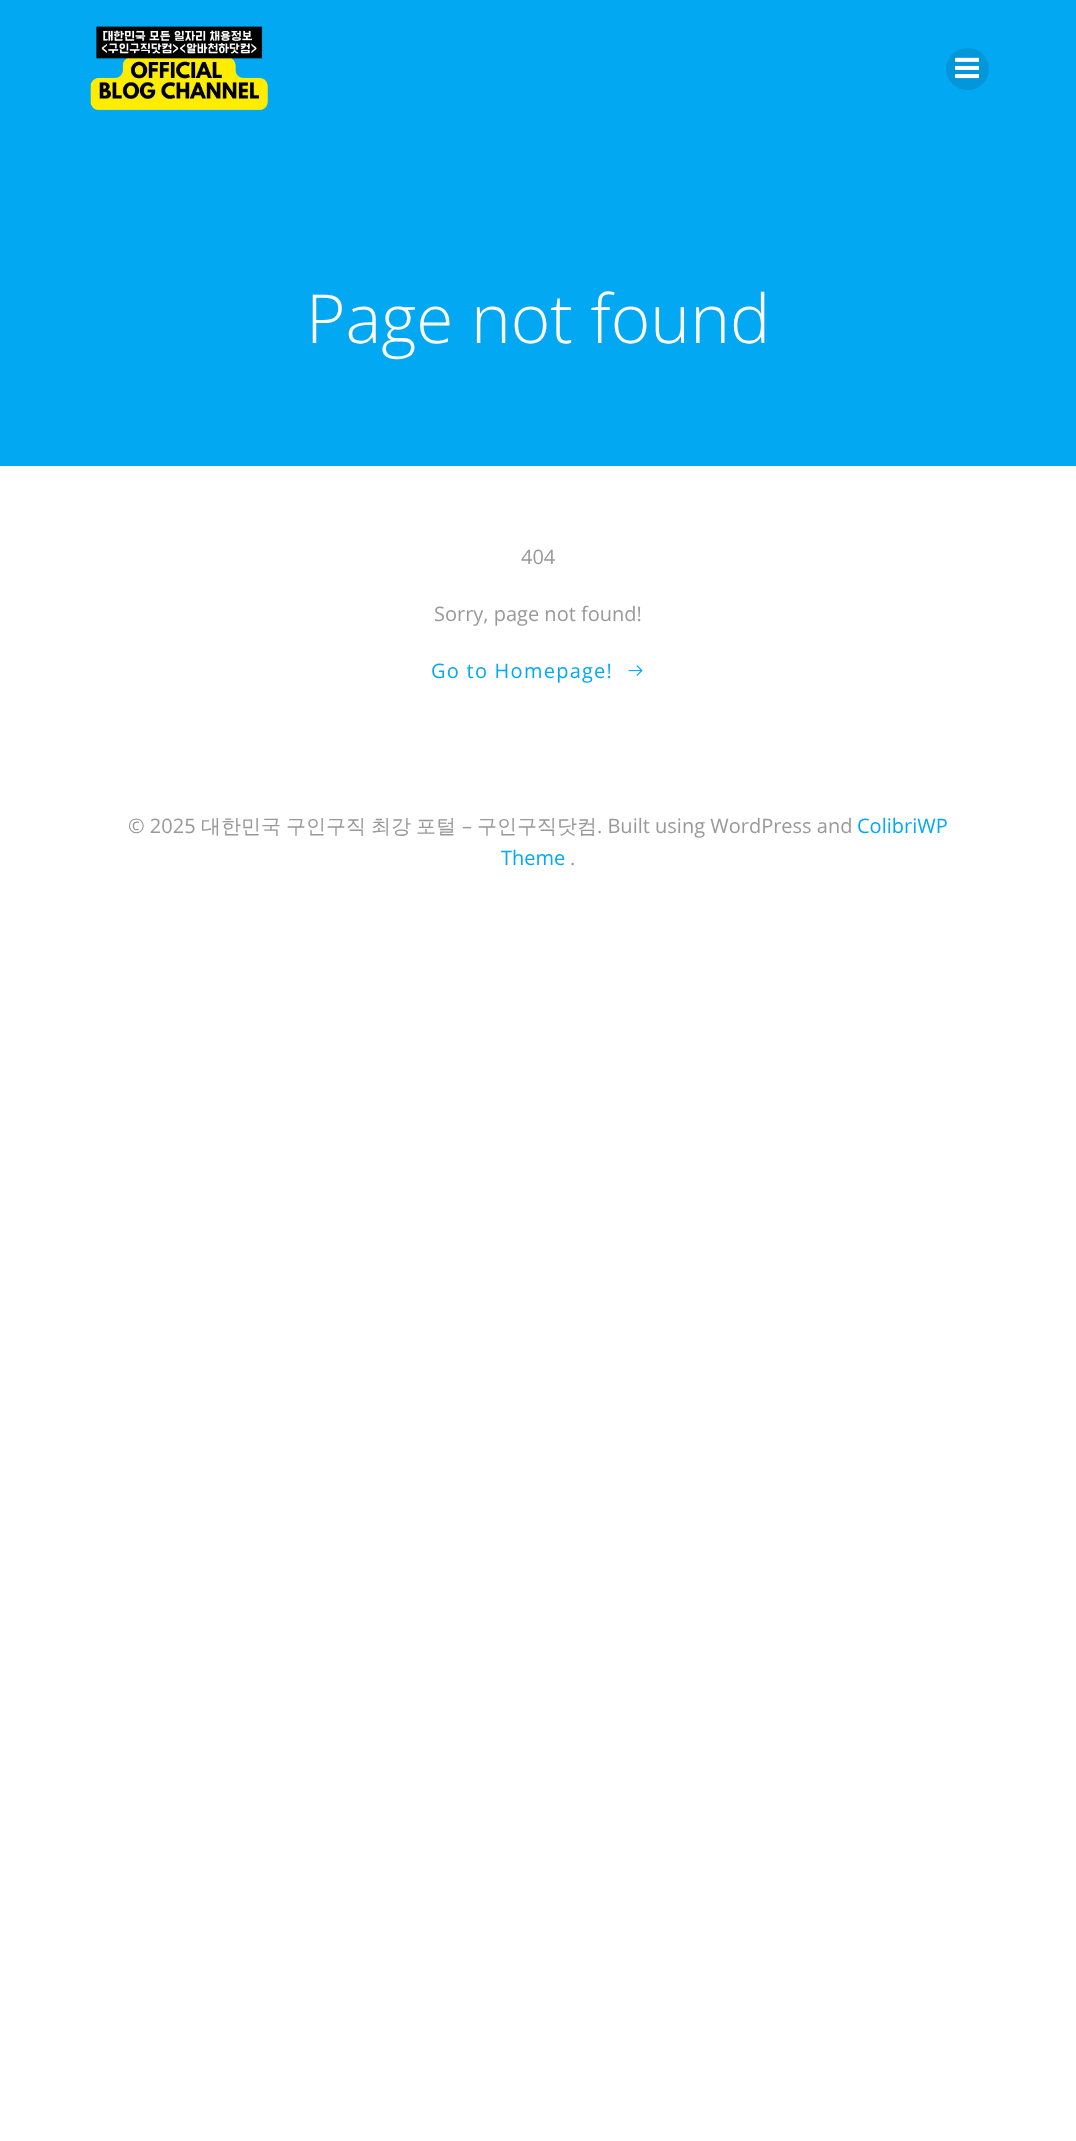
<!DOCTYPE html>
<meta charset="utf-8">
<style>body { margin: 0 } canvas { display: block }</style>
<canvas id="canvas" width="1076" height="2141"></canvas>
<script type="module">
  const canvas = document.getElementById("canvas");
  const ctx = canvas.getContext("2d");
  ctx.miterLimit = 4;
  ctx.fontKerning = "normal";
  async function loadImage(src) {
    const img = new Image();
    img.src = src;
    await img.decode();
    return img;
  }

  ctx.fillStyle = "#ffffff";
  ctx.fillRect(0, 0, 1076, 2141);
  ctx.fillStyle = "#03a8f2";
  ctx.fillRect(0, 0, 1076, 466);
  ctx.drawImage(await loadImage("img1.png"), 90, 26, 178, 85);
  ctx.fillStyle = "#0397da";
  ctx.beginPath();
  ctx.roundRect(946, 48, 43, 42, 21);
  ctx.fill();
  ctx.drawImage(await loadImage("img2.png"), 955, 57, 24, 22);
  ctx.font = "300 67.5px Open Sans";
  ctx.fillStyle = "#ffffff";
  ctx.fillText("Page not found", 306, 343);
  ctx.font = "20px Open Sans";
  ctx.fillStyle = "#999999";
  ctx.fillText("404", 521, 564);
  ctx.fillText("Sorry, page not found!", 434, 621);
  ctx.letterSpacing = "1.25px";
  ctx.fillStyle = "#03a9f4";
  ctx.fillText("Go to Homepage!", 431, 678);
  ctx.drawImage(await loadImage("img3.png"), 628, 665, 15, 11);
  ctx.letterSpacing = "0px";
  ctx.fillStyle = "#999999";
  ctx.fillText("© 2025", 128, 833);
  ctx.font = "500 20px WenQuanYi Zen Hei";
  ctx.fillText("대한민국", 201, 833);
  ctx.fillText("구인구직", 286, 833);
  ctx.fillText("최강", 371, 833);
  ctx.fillText("포털", 416, 833);
  ctx.font = "20px Open Sans";
  ctx.fillText("–", 462, 833);
  ctx.font = "500 20px WenQuanYi Zen Hei";
  ctx.fillText("구인구직닷컴", 477, 833);
  ctx.font = "20px Open Sans";
  ctx.fillText(". Built using WordPress and", 597, 833);
  ctx.fillStyle = "#03a9f4";
  ctx.fillText("ColibriWP", 857, 833);
  ctx.fillText("Theme", 501, 865);
  ctx.fillStyle = "#999999";
  ctx.fillText(".", 570, 865);
</script>
